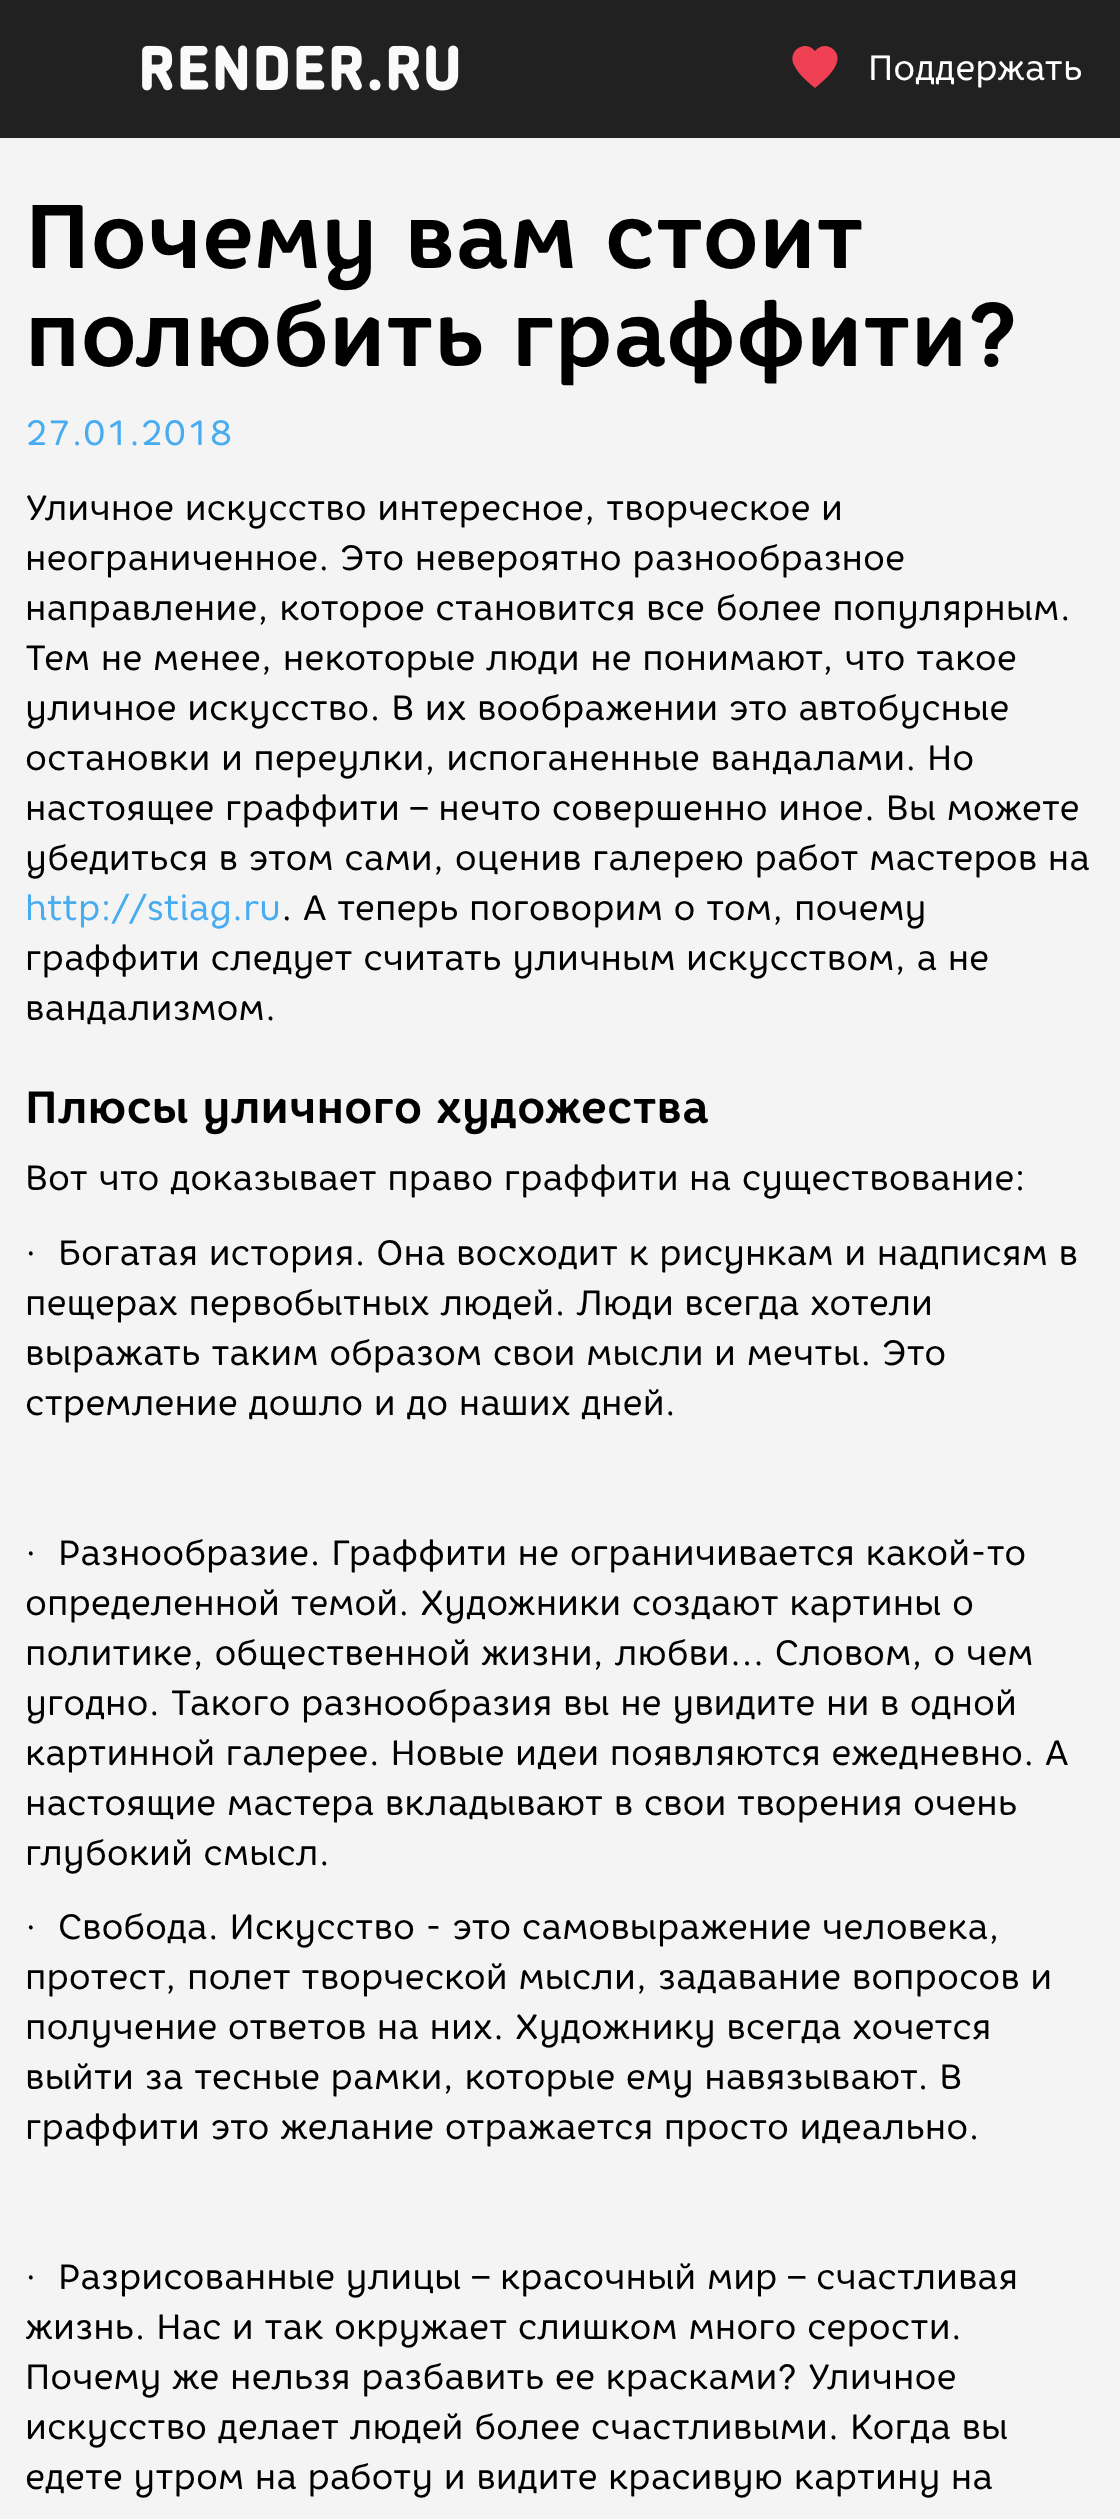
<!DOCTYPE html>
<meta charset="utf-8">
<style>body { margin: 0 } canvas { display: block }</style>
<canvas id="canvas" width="1120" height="2519"></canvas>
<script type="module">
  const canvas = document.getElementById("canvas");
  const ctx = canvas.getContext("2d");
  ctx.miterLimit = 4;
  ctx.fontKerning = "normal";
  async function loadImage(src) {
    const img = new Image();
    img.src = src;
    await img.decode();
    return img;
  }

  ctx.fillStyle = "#f4f4f4";
  ctx.fillRect(0, 0, 1120, 2519);
  ctx.fillStyle = "#212121";
  ctx.fillRect(0, 0, 1120, 138);
  ctx.drawImage(await loadImage("img1.png"), 142, 45, 317, 46);
  ctx.fillStyle = "#f04154";
  ctx.beginPath();
  ctx.moveTo(815, 88);
  ctx.bezierCurveTo(808, 82, 798, 74, 794, 65);
  ctx.bezierCurveTo(787, 51, 805, 39, 815, 51);
  ctx.bezierCurveTo(825, 39, 843, 51, 836, 65);
  ctx.bezierCurveTo(832, 74, 822, 82, 815, 88);
  ctx.closePath();
  ctx.fill();
  ctx.font = "35px 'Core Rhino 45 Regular'";
  ctx.fillStyle = "#ffffff";
  ctx.fillText("Поддержать", 868, 80);
  ctx.font = "bold 90px 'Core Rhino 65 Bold'";
  ctx.fillStyle = "#000000";
  ctx.fillText("Почему вам стоит", 25, 268);
  ctx.fillText("полюбить граффити?", 25, 366);
  ctx.font = "35px 'Core Rhino 45 Regular'";
  ctx.fillStyle = "#48acf1";
  ctx.fillText("27.01.2018", 25, 445);
  ctx.fillStyle = "#000000";
  ctx.fillText("Уличное искусство интересное, творческое и", 25, 520);
  ctx.fillText("неограниченное. Это невероятно разнообразное", 25, 570);
  ctx.fillText("направление, которое становится все более популярным.", 25, 620);
  ctx.fillText("Тем не менее, некоторые люди не понимают, что такое", 25, 670);
  ctx.fillText("уличное искусство. В их воображении это автобусные", 25, 720);
  ctx.fillText("остановки и переулки, испоганенные вандалами. Но", 25, 770);
  ctx.fillText("настоящее граффити – нечто совершенно иное. Вы можете", 25, 820);
  ctx.fillText("убедиться в этом сами, оценив галерею работ мастеров на", 25, 870);
  ctx.fillStyle = "#48acf1";
  ctx.fillText("http://stiag.ru", 25, 920);
  ctx.fillStyle = "#000000";
  ctx.fillText(". А теперь поговорим о том, почему", 281, 920);
  ctx.fillText("граффити следует считать уличным искусством, а не", 25, 970);
  ctx.fillText("вандализмом.", 25, 1020);
  ctx.font = "bold 45px 'Core Rhino 65 Bold'";
  ctx.fillText("Плюсы уличного художества", 25, 1123);
  ctx.font = "35px 'Core Rhino 45 Regular'";
  ctx.fillText("Вот что доказывает право граффити на существование:", 25, 1190);
  ctx.fillText("·", 25, 1265);
  ctx.fillText("Богатая история. Она восходит к рисункам и надписям в", 58, 1265);
  ctx.fillText("пещерах первобытных людей. Люди всегда хотели", 25, 1315);
  ctx.fillText("выражать таким образом свои мысли и мечты. Это", 25, 1365);
  ctx.fillText("стремление дошло и до наших дней.", 25, 1415);
  ctx.fillText("·", 25, 1565);
  ctx.fillText("Разнообразие. Граффити не ограничивается какой-то", 58, 1565);
  ctx.fillText("определенной темой. Художники создают картины о", 25, 1615);
  ctx.fillText("политике, общественной жизни, любви… Словом, о чем", 25, 1665);
  ctx.fillText("угодно. Такого разнообразия вы не увидите ни в одной", 25, 1715);
  ctx.fillText("картинной галерее. Новые идеи появляются ежедневно. А", 25, 1765);
  ctx.fillText("настоящие мастера вкладывают в свои творения очень", 25, 1815);
  ctx.fillText("глубокий смысл.", 25, 1865);
  ctx.fillText("·", 25, 1939);
  ctx.fillText("Свобода. Искусство - это самовыражение человека,", 58, 1939);
  ctx.fillText("протест, полет творческой мысли, задавание вопросов и", 25, 1989);
  ctx.fillText("получение ответов на них. Художнику всегда хочется", 25, 2039);
  ctx.fillText("выйти за тесные рамки, которые ему навязывают. В", 25, 2089);
  ctx.fillText("граффити это желание отражается просто идеально.", 25, 2139);
  ctx.fillText("·", 25, 2289);
  ctx.fillText("Разрисованные улицы – красочный мир – счастливая", 58, 2289);
  ctx.fillText("жизнь. Нас и так окружает слишком много серости.", 25, 2339);
  ctx.fillText("Почему же нельзя разбавить ее красками? Уличное", 25, 2389);
  ctx.fillText("искусство делает людей более счастливыми. Когда вы", 25, 2439);
  ctx.fillText("едете утром на работу и видите красивую картину на", 25, 2489);
</script>
